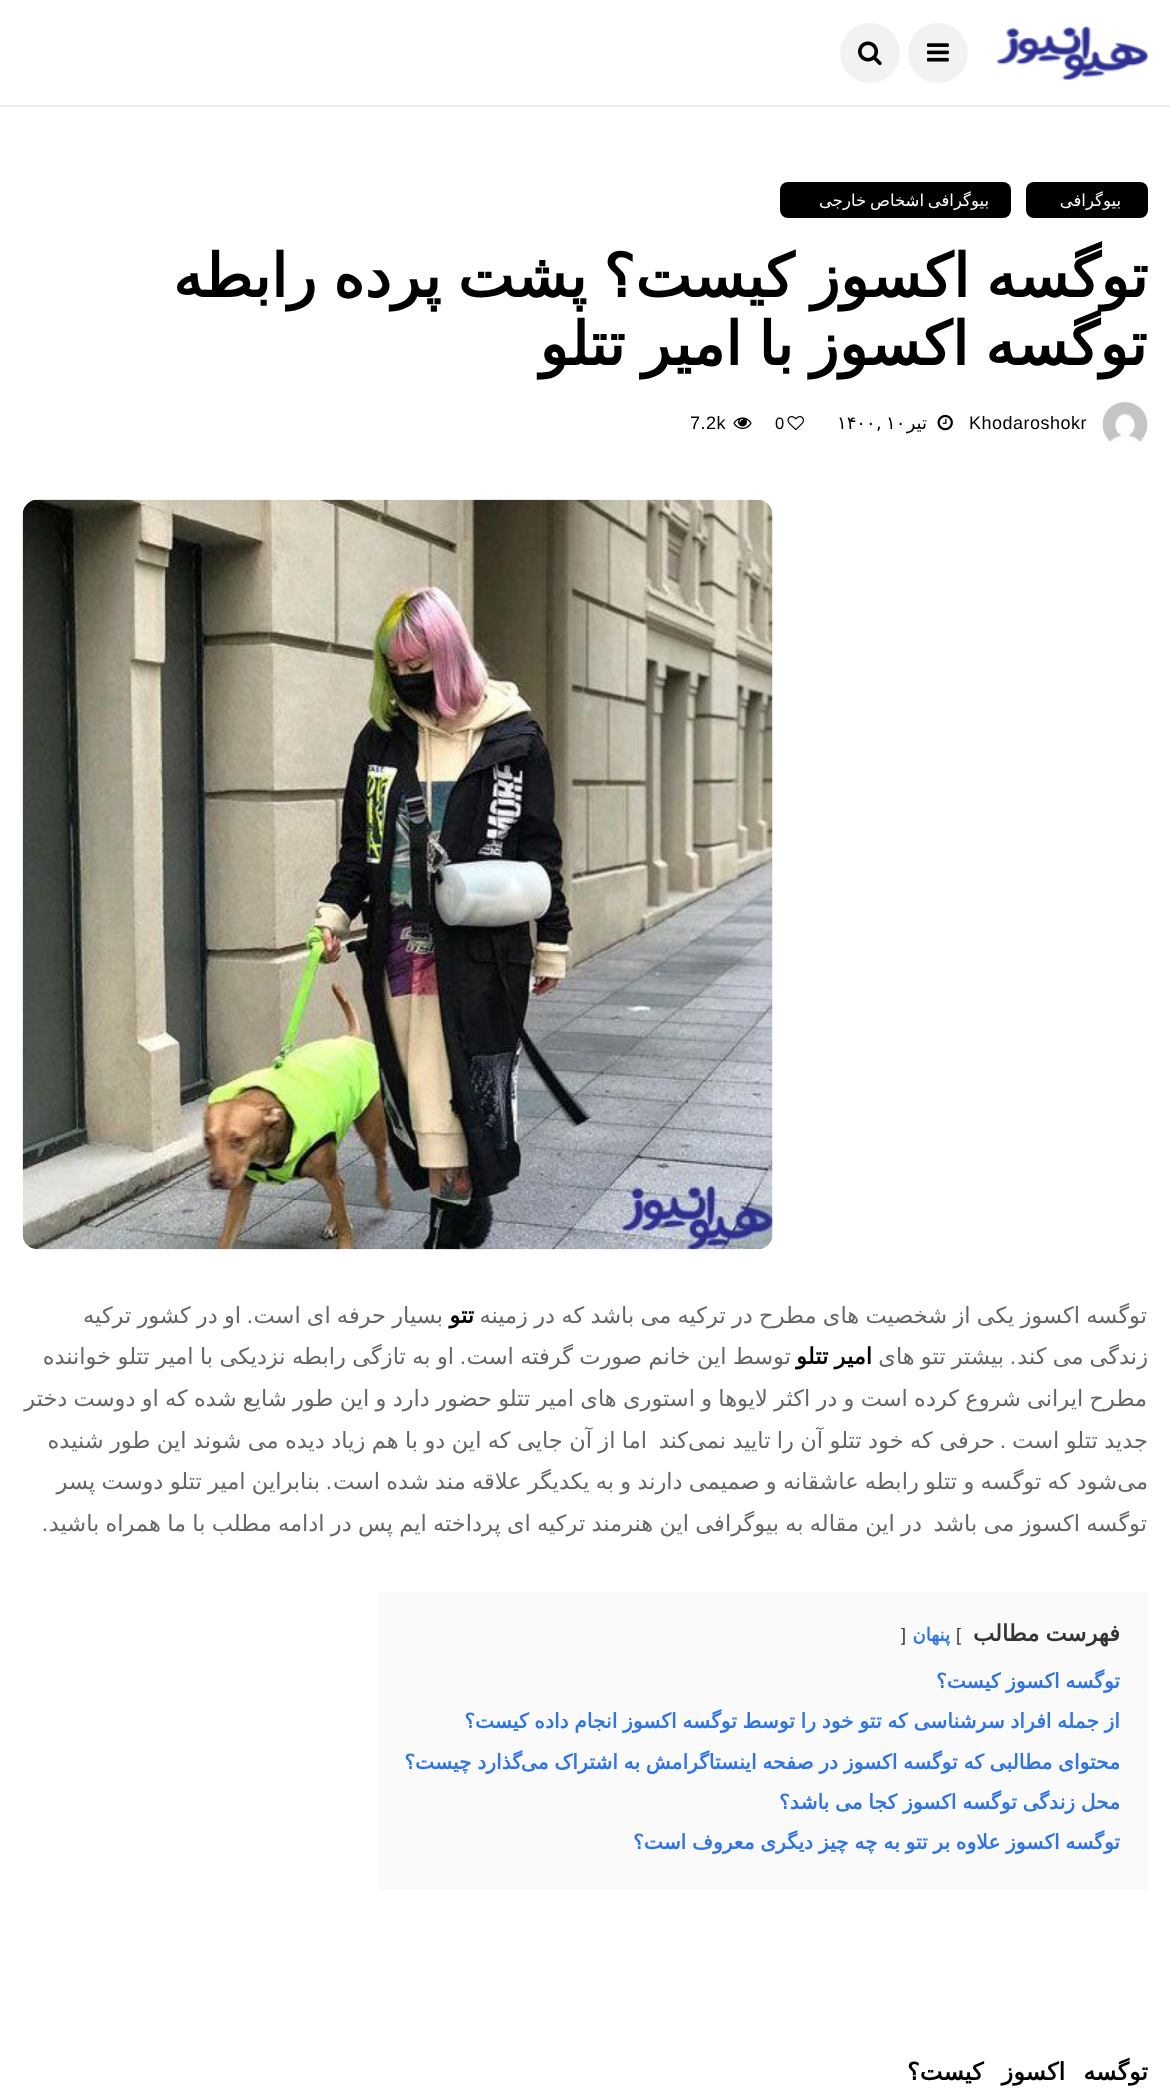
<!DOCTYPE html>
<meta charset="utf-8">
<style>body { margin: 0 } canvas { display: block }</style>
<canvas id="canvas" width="1170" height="2090"></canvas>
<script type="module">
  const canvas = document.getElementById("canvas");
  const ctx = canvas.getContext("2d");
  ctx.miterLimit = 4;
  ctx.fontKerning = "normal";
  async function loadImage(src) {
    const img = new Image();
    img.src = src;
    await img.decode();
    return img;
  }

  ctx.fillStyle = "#ffffff";
  ctx.fillRect(0, 0, 1170, 2090);
  ctx.fillStyle = "#eeeeee";
  ctx.fillRect(0, 105, 1170, 2);
  ctx.drawImage(await loadImage("img1.png"), 997, 26, 151, 54);
  ctx.fillStyle = "#f2f2f2";
  ctx.beginPath();
  ctx.arc(938, 53, 30, 0, Math.PI * 2);
  ctx.fill();
  ctx.drawImage(await loadImage("img2.png"), 927, 43, 22, 19);
  ctx.beginPath();
  ctx.arc(870, 53, 30, 0, Math.PI * 2);
  ctx.fill();
  ctx.drawImage(await loadImage("img3.png"), 858, 41, 24, 25);
  ctx.fillStyle = "#000000";
  ctx.beginPath();
  ctx.roundRect(1026, 182, 122, 36, 8);
  ctx.fill();
  ctx.letterSpacing = "0.5px";
  ctx.direction = "rtl";
  ctx.font = "16.5px DejaVu Sans";
  ctx.fillStyle = "#ffffff";
  ctx.fillText("بیوگرافی", 1121, 206);
  ctx.fillStyle = "#000000";
  ctx.beginPath();
  ctx.roundRect(780, 182, 231, 36, 8);
  ctx.fill();
  ctx.wordSpacing = "-2px";
  ctx.fillStyle = "#ffffff";
  ctx.fillText("بیوگرافی اشخاص خارجی", 989, 206);
  ctx.letterSpacing = "0px";
  ctx.wordSpacing = "-2.5px";
  ctx.font = "bold 60px DejaVu Sans";
  ctx.fillStyle = "#000000";
  ctx.fillText("توگسه اکسوز کیست؟ پشت پرده رابطه", 1148, 297);
  ctx.fillText("توگسه اکسوز با امیر تتلو", 1147, 365);
  ctx.drawImage(await loadImage("img4.png"), 1102, 402, 46, 42);
  ctx.letterSpacing = "0.5px";
  ctx.wordSpacing = "0px";
  ctx.direction = "ltr";
  ctx.font = "18px Liberation Sans";
  ctx.fillText("Khodaroshokr", 969, 429);
  ctx.drawImage(await loadImage("img5.png"), 937, 414, 16, 17);
  ctx.direction = "rtl";
  ctx.font = "18px DejaVu Sans";
  ctx.fillText("تیر", 927, 429);
  ctx.direction = "ltr";
  ctx.fillText("۱۰", 886, 429);
  ctx.fillText(",", 876, 429);
  ctx.fillText("۱۴۰۰", 837, 429);
  ctx.drawImage(await loadImage("img6.png"), 787, 416, 17, 15);
  ctx.letterSpacing = "3px";
  ctx.font = "16.5px Liberation Sans";
  ctx.fillText("0", 775, 429);
  ctx.drawImage(await loadImage("img7.png"), 733, 417, 19, 12);
  ctx.letterSpacing = "0.5px";
  ctx.font = "18px Liberation Sans";
  ctx.fillText("7.2k", 690, 429);
  ctx.drawImage(await loadImage("img8.png"), 22, 499, 751, 751);
  ctx.letterSpacing = "0px";
  ctx.wordSpacing = "-0.9px";
  ctx.direction = "rtl";
  ctx.font = "22.5px DejaVu Sans";
  ctx.fillStyle = "#666666";
  ctx.fillText("توگسه اکسوز یکی از شخصیت های مطرح در ترکیه می باشد که در زمینه", 1147, 1323);
  ctx.wordSpacing = "0px";
  ctx.font = "bold 22.5px DejaVu Sans";
  ctx.fillStyle = "#000000";
  ctx.fillText("تتو", 474, 1323);
  ctx.wordSpacing = "-1px";
  ctx.font = "22.5px DejaVu Sans";
  ctx.fillStyle = "#666666";
  ctx.fillText("بسیار حرفه ای است", 443, 1323);
  ctx.wordSpacing = "0px";
  ctx.font = "22.5px Liberation Sans";
  ctx.fillText(".", 253, 1323);
  ctx.wordSpacing = "-1px";
  ctx.font = "22.5px DejaVu Sans";
  ctx.fillText("او در کشور ترکیه", 241, 1323);
  ctx.fillText("زندگی می کند", 1148, 1364);
  ctx.wordSpacing = "0px";
  ctx.font = "22.5px Liberation Sans";
  ctx.fillText(".", 1016, 1364);
  ctx.wordSpacing = "-1px";
  ctx.font = "22.5px DejaVu Sans";
  ctx.fillText("بیشتر تتو های", 1004, 1364);
  ctx.wordSpacing = "-0.9px";
  ctx.font = "bold 22.5px DejaVu Sans";
  ctx.fillStyle = "#000000";
  ctx.fillText("امیر تتلو", 872, 1364);
  ctx.wordSpacing = "-0.75px";
  ctx.font = "22.5px DejaVu Sans";
  ctx.fillStyle = "#666666";
  ctx.fillText("توسط این خانم صورت گرفته است", 791, 1364);
  ctx.wordSpacing = "0px";
  ctx.font = "22.5px Liberation Sans";
  ctx.fillText(".", 466, 1364);
  ctx.wordSpacing = "-0.75px";
  ctx.font = "22.5px DejaVu Sans";
  ctx.fillText("او به تازگی رابطه نزدیکی با امیر تتلو خواننده", 454, 1364);
  ctx.wordSpacing = "-0.9px";
  ctx.fillText("مطرح ایرانی شروع کرده است و در اکثر لایوها و استوری های امیر تتلو حضور دارد و این طور شایع شده که او دوست دختر", 1147, 1406);
  ctx.wordSpacing = "-0.75px";
  ctx.fillText("جدید تتلو است", 1148, 1448);
  ctx.wordSpacing = "0px";
  ctx.font = "22.5px Liberation Sans";
  ctx.fillText(".", 1006, 1448);
  ctx.wordSpacing = "-0.75px";
  ctx.font = "22.5px DejaVu Sans";
  ctx.fillText("حرفی که خود تتلو آن را تایید نمی", 995, 1448);
  ctx.wordSpacing = "0px";
  ctx.fillText("کند", 688, 1448);
  ctx.wordSpacing = "-0.75px";
  ctx.fillText("اما از آن جایی که این دو با هم زیاد دیده می شوند این طور شنیده", 647, 1448);
  ctx.wordSpacing = "-0.9px";
  ctx.fillText("شود که توگسه و تتلو رابطه عاشقانه و صمیمی دارند و به یکدیگر علاقه مند شده است", 1117, 1489);
  ctx.wordSpacing = "0px";
  ctx.fillText("می", 1148, 1489);
  ctx.font = "22.5px Liberation Sans";
  ctx.fillText(".", 332, 1489);
  ctx.wordSpacing = "-0.9px";
  ctx.font = "22.5px DejaVu Sans";
  ctx.fillText("بنابراین امیر تتلو دوست پسر", 320, 1489);
  ctx.fillText("توگسه اکسوز می باشد", 1147, 1531);
  ctx.fillText("در این مقاله به بیوگرافی این هنرمند ترکیه ای پرداخته ایم پس در ادامه مطلب با ما همراه باشید", 922, 1531);
  ctx.wordSpacing = "0px";
  ctx.font = "22.5px Liberation Sans";
  ctx.fillText(".", 48, 1531);
  ctx.fillStyle = "#fafafa";
  ctx.fillRect(378, 1592, 770, 298);
  ctx.wordSpacing = "-0.9px";
  ctx.font = "bold 22.5px DejaVu Sans";
  ctx.fillStyle = "#333333";
  ctx.fillText("فهرست مطالب", 1120, 1641);
  ctx.wordSpacing = "0px";
  ctx.direction = "ltr";
  ctx.font = "18px Liberation Sans";
  ctx.fillText("[", 956, 1641);
  ctx.direction = "rtl";
  ctx.font = "bold 18px DejaVu Sans";
  ctx.fillStyle = "#3175e4";
  ctx.fillText("پنهان", 950, 1641);
  ctx.direction = "ltr";
  ctx.font = "18px Liberation Sans";
  ctx.fillStyle = "#333333";
  ctx.fillText("]", 901, 1641);
  ctx.wordSpacing = "-0.75px";
  ctx.direction = "rtl";
  ctx.font = "bold 20.25px DejaVu Sans";
  ctx.fillStyle = "#3175e4";
  ctx.fillText("توگسه اکسوز کیست؟", 1120, 1688);
  ctx.fillText("از جمله افراد سرشناسی که تتو خود را توسط توگسه اکسوز انجام داده کیست؟", 1120, 1728);
  ctx.fillText("محتوای مطالبی که توگسه اکسوز در صفحه اینستاگرامش به اشتراک می", 1120, 1769);
  ctx.fillText("گذارد چیست؟", 522, 1769);
  ctx.fillText("محل زندگی توگسه اکسوز کجا می باشد؟", 1120, 1809);
  ctx.fillText("توگسه اکسوز علاوه بر تتو به چه چیز دیگری معروف است؟", 1120, 1849);
  ctx.letterSpacing = "-1.5px";
  ctx.wordSpacing = "12px";
  ctx.font = "bold 24px DejaVu Sans";
  ctx.fillStyle = "#000000";
  ctx.fillText("توگسه اکسوز کیست؟", 1148, 2080);
</script>
